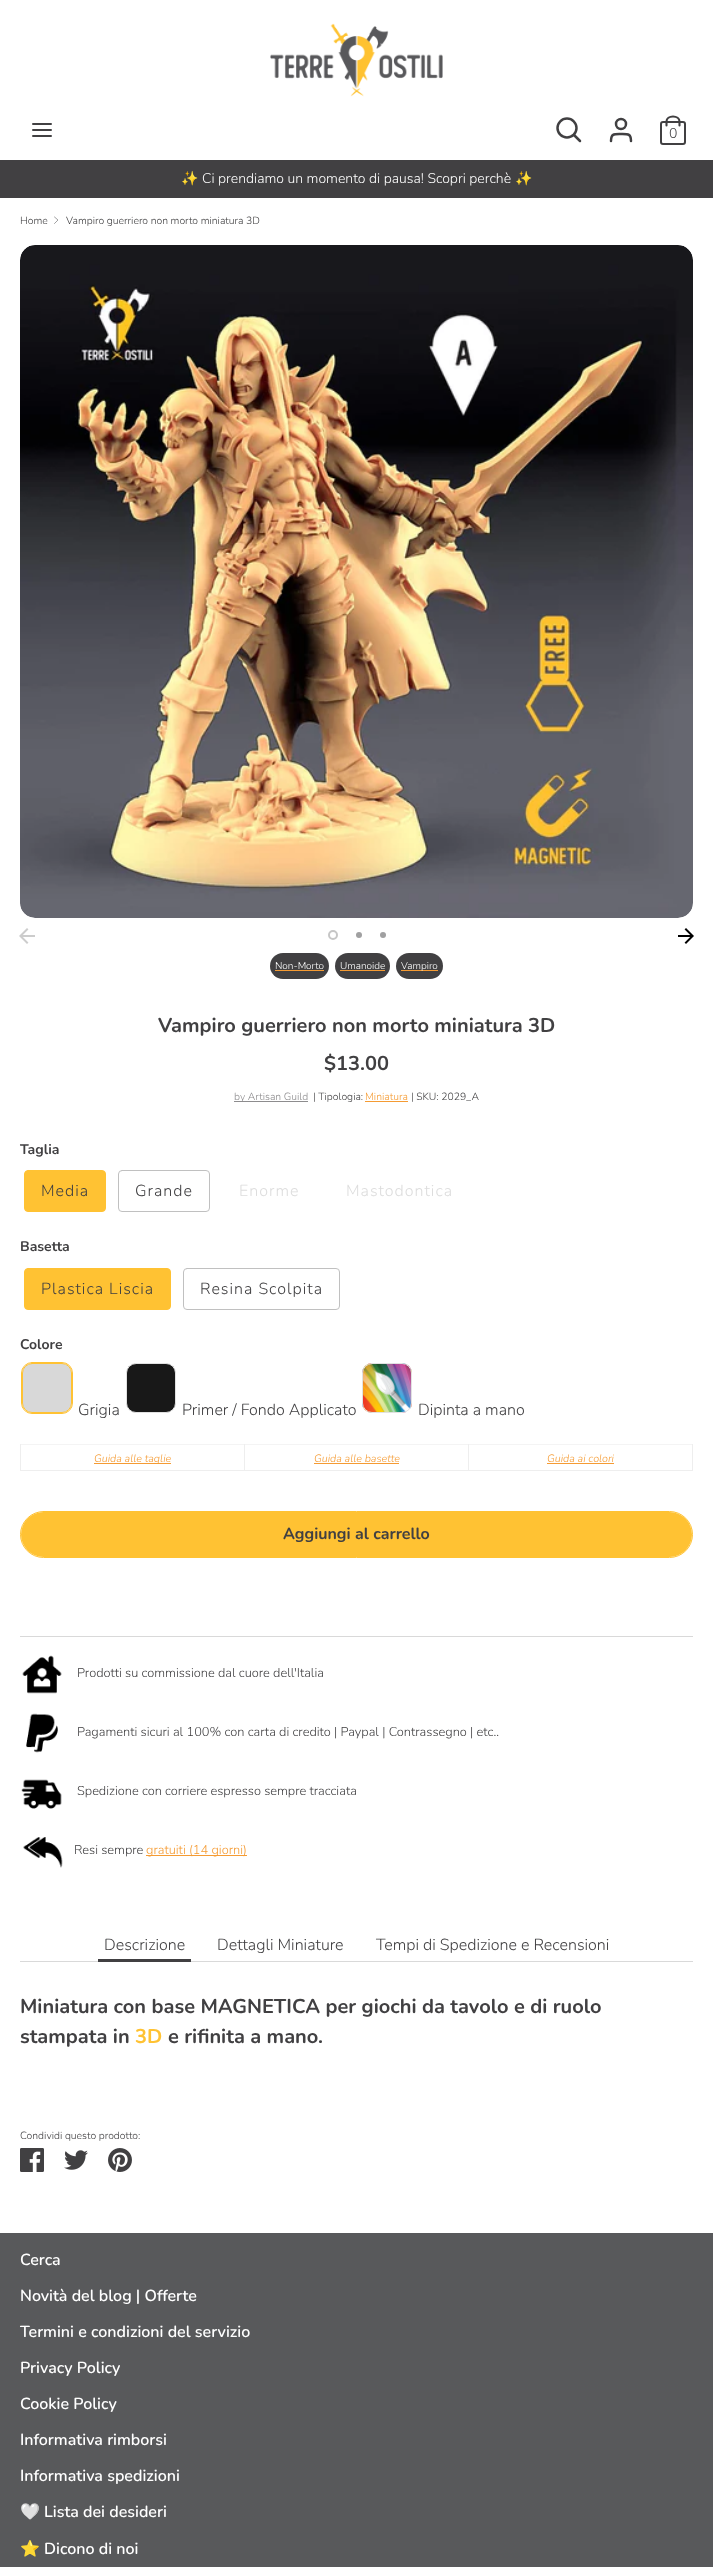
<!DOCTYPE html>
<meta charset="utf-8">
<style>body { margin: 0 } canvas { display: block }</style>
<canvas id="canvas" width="713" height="2567"></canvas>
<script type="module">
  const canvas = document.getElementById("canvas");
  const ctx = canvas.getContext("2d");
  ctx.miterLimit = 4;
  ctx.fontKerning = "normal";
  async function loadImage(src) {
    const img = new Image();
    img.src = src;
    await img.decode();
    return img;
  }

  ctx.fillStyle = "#ffffff";
  ctx.fillRect(0, 0, 713, 2567);
  ctx.drawImage(await loadImage("img1.png"), 270, 23, 173, 74);
  ctx.beginPath();
  ctx.moveTo(33, 130);
  ctx.lineTo(51, 130);
  ctx.moveTo(33, 124);
  ctx.lineTo(51, 124);
  ctx.moveTo(33, 136);
  ctx.lineTo(51, 136);
  ctx.strokeStyle = "#414042";
  ctx.lineWidth = 2;
  ctx.lineCap = "round";
  ctx.stroke();
  ctx.beginPath();
  ctx.arc(567, 128, 9.5, 0, Math.PI * 2);
  ctx.lineWidth = 2.5;
  ctx.stroke();
  ctx.beginPath();
  ctx.moveTo(580, 141);
  ctx.lineTo(574, 135);
  ctx.moveTo(631, 141);
  ctx.bezierCurveTo(631, 133.5, 628, 134, 621, 134);
  ctx.bezierCurveTo(614, 134, 611, 133.5, 611, 141);
  ctx.stroke();
  ctx.beginPath();
  ctx.arc(621, 124, 5, 0, Math.PI * 2);
  ctx.stroke();
  ctx.beginPath();
  ctx.roundRect(661, 122, 24, 22, 2);
  ctx.lineWidth = 2;
  ctx.stroke();
  ctx.beginPath();
  ctx.moveTo(666.5, 125.5);
  ctx.lineTo(666.5, 121.5);
  ctx.bezierCurveTo(666.5, 118.5, 669.5, 116.5, 673, 116.5);
  ctx.bezierCurveTo(676.5, 116.5, 679.5, 118.5, 679.5, 121.5);
  ctx.lineTo(679.5, 125.5);
  ctx.lineWidth = 2.1;
  ctx.stroke();
  ctx.font = "300 14px Nunito";
  ctx.fillStyle = "#414042";
  ctx.fillText("0", 669, 138);
  ctx.fillRect(0, 160, 713, 38);
  ctx.font = "14px Noto Color Emoji";
  ctx.fillStyle = "#ffffff";
  ctx.fillText("✨", 181, 183);
  ctx.font = "300 14px Nunito";
  ctx.fillText("Ci prendiamo un momento di pausa! Scopri perchè", 202, 183);
  ctx.font = "14px Noto Color Emoji";
  ctx.fillText("✨", 515, 183);
  ctx.font = "300 10.4px Nunito";
  ctx.fillStyle = "#414042";
  ctx.fillText("Home", 20, 224);
  ctx.beginPath();
  ctx.moveTo(54.5, 223.5);
  ctx.lineTo(58, 220);
  ctx.lineTo(54.5, 217);
  ctx.strokeStyle = "#a0a0a1";
  ctx.lineWidth = 1;
  ctx.stroke();
  ctx.fillText("Vampiro guerriero non morto miniatura 3D", 66, 224);
  ctx.drawImage(await loadImage("img2.png"), 20, 245, 673, 673);
  ctx.drawImage(await loadImage("img3.png"), 19, 928, 16, 16);
  ctx.drawImage(await loadImage("img4.png"), 678, 928, 16, 16);
  ctx.beginPath();
  ctx.arc(333, 935, 4, 0, Math.PI * 2);
  ctx.strokeStyle = "#c6c6c6";
  ctx.lineWidth = 2;
  ctx.stroke();
  ctx.fillStyle = "#a0a0a1";
  ctx.beginPath();
  ctx.arc(359, 935, 3, 0, Math.PI * 2);
  ctx.fill();
  ctx.beginPath();
  ctx.arc(383, 935, 3, 0, Math.PI * 2);
  ctx.fill();
  ctx.fillStyle = "#414042";
  ctx.beginPath();
  ctx.roundRect(270, 953, 59, 26, 13);
  ctx.fill();
  ctx.font = "300 10px Nunito";
  ctx.fillStyle = "#ffffff";
  ctx.fillText("Non-Morto", 275, 969);
  ctx.fillStyle = "#f59b33";
  ctx.fillRect(275, 970, 49, 1);
  ctx.fillStyle = "#414042";
  ctx.beginPath();
  ctx.roundRect(335, 953, 55, 26, 13);
  ctx.fill();
  ctx.fillStyle = "#ffffff";
  ctx.fillText("Umanoide", 340, 969);
  ctx.fillStyle = "#f59b33";
  ctx.fillRect(340, 970, 45, 1);
  ctx.fillStyle = "#414042";
  ctx.beginPath();
  ctx.roundRect(396, 953, 47, 26, 13);
  ctx.fill();
  ctx.fillStyle = "#f59b33";
  ctx.fillRect(401, 970, 37, 1);
  ctx.fillStyle = "#ffffff";
  ctx.fillText("Vampiro", 401, 969);
  ctx.font = "bold 20px Nunito";
  ctx.fillStyle = "#414042";
  ctx.fillText("Vampiro guerriero non morto miniatura 3D", 158, 1032);
  ctx.fillText("$13.00", 324, 1070);
  ctx.fillStyle = "#8d8c8e";
  ctx.fillRect(234, 1101, 74, 1);
  ctx.font = "300 10.4px Nunito";
  ctx.fillText("by Artisan Guild", 234, 1100);
  ctx.fillStyle = "#414042";
  ctx.fillText("| Tipologia:", 313, 1100);
  ctx.fillStyle = "#f59b33";
  ctx.fillText("Miniatura", 365, 1100);
  ctx.fillRect(365, 1101, 43, 1);
  ctx.fillStyle = "#414042";
  ctx.fillText("| SKU: 2029_A", 411, 1100);
  ctx.font = "bold 14px Nunito";
  ctx.fillText("Taglia", 20, 1154);
  ctx.fillStyle = "#ffc233";
  ctx.beginPath();
  ctx.roundRect(24.5, 1170.5, 81, 41, 3.5);
  ctx.fill();
  ctx.strokeStyle = "#ffc233";
  ctx.lineWidth = 1;
  ctx.stroke();
  ctx.letterSpacing = "1px";
  ctx.font = "300 16px Nunito";
  ctx.fillStyle = "#414042";
  ctx.fillText("Media", 41, 1196);
  ctx.beginPath();
  ctx.roundRect(118.5, 1170.5, 91, 41, 3.5);
  ctx.strokeStyle = "#c0c0c0";
  ctx.stroke();
  ctx.fillText("Grande", 135, 1196);
  ctx.fillStyle = "#dddddd";
  ctx.fillText("Enorme", 239, 1196);
  ctx.fillText("Mastodontica", 346, 1196);
  ctx.letterSpacing = "0px";
  ctx.font = "bold 14px Nunito";
  ctx.fillStyle = "#414042";
  ctx.fillText("Basetta", 20, 1251);
  ctx.fillStyle = "#ffc233";
  ctx.beginPath();
  ctx.roundRect(24.5, 1268.5, 146, 41, 3.5);
  ctx.fill();
  ctx.strokeStyle = "#ffc233";
  ctx.stroke();
  ctx.letterSpacing = "1px";
  ctx.font = "300 16px Nunito";
  ctx.fillStyle = "#414042";
  ctx.fillText("Plastica Liscia", 41, 1294);
  ctx.beginPath();
  ctx.roundRect(183.5, 1268.5, 156, 41, 3.5);
  ctx.strokeStyle = "#c0c0c0";
  ctx.stroke();
  ctx.fillText("Resina Scolpita", 200, 1294);
  ctx.letterSpacing = "0px";
  ctx.font = "bold 14px Nunito";
  ctx.fillText("Colore", 20, 1349);
  ctx.beginPath();
  ctx.roundRect(21.5, 1362.5, 51, 51, 10.5);
  ctx.strokeStyle = "#ffc233";
  ctx.stroke();
  ctx.fillStyle = "#d8d8d8";
  ctx.beginPath();
  ctx.roundRect(22.5, 1363.5, 49, 49, 9.5);
  ctx.fill();
  ctx.stroke();
  ctx.font = "300 16px Nunito";
  ctx.fillStyle = "#414042";
  ctx.fillText("Grigia", 78, 1415);
  ctx.fillStyle = "#181818";
  ctx.beginPath();
  ctx.roundRect(126.5, 1363.5, 49, 49, 9.5);
  ctx.fill();
  ctx.strokeStyle = "#e1e1e1";
  ctx.stroke();
  ctx.fillStyle = "#414042";
  ctx.fillText("Primer / Fondo Applicato", 182, 1415);
  ctx.drawImage(await loadImage("img5.png"), 362, 1363, 50, 50);
  ctx.beginPath();
  ctx.roundRect(362.5, 1363.5, 49, 49, 9.5);
  ctx.stroke();
  ctx.fillText("Dipinta a mano", 418, 1415);
  ctx.fillStyle = "#f4f4f4";
  ctx.fillRect(20, 1444, 673, 1);
  ctx.fillStyle = "#eeeeee";
  ctx.fillRect(692, 1444, 1, 27);
  ctx.fillRect(468, 1470, 225, 1);
  ctx.fillRect(468, 1444, 1, 27);
  ctx.fillRect(244, 1470, 225, 1);
  ctx.fillRect(244, 1444, 1, 27);
  ctx.fillRect(20, 1470, 225, 1);
  ctx.fillRect(20, 1444, 1, 27);
  ctx.fillStyle = "#f59b33";
  ctx.fillRect(94, 1463, 77, 1);
  ctx.font = "italic 300 10.75px Nunito";
  ctx.fillText("Guida alle taglie", 94, 1462);
  ctx.fillText("Guida alle basette", 314, 1462);
  ctx.fillRect(314, 1463, 85, 1);
  ctx.fillText("Guida ai colori", 547, 1462);
  ctx.fillRect(547, 1463, 67, 1);
  ctx.beginPath();
  ctx.roundRect(20.5, 1511.5, 672, 46, 23);
  ctx.strokeStyle = "#ffc233";
  ctx.stroke();
  ctx.fillStyle = "#ffc233";
  ctx.beginPath();
  ctx.roundRect(21, 1512, 671, 45, 22.5);
  ctx.fill();
  ctx.font = "bold 16px Nunito";
  ctx.fillStyle = "#414042";
  ctx.fillText("Aggiungi al carrello", 283, 1539);
  ctx.fillStyle = "#d9d9d9";
  ctx.fillRect(20, 1636, 673, 1);
  ctx.drawImage(await loadImage("img6.png"), 22, 1655, 40, 39);
  ctx.font = "300 12.8px Nunito";
  ctx.fillStyle = "#414042";
  ctx.fillText("Prodotti su commissione dal cuore dell'Italia", 77, 1677);
  ctx.drawImage(await loadImage("img7.png"), 26, 1713, 32, 40);
  ctx.fillText("Pagamenti sicuri al 100% con carta di credito | Paypal | Contrassegno | etc..", 77, 1736);
  ctx.drawImage(await loadImage("img8.png"), 21, 1779, 41, 30);
  ctx.fillText("Spedizione con corriere espresso sempre tracciata", 77, 1795);
  ctx.drawImage(await loadImage("img9.png"), 23, 1837, 40, 31);
  ctx.fillText("Resi sempre", 74, 1854);
  ctx.fillStyle = "#f59b33";
  ctx.fillRect(146, 1855, 101, 1);
  ctx.fillText("gratuiti (14 giorni)", 146, 1854);
  ctx.fillStyle = "#d9d9d9";
  ctx.fillRect(20, 1961, 673, 1);
  ctx.font = "300 16px Nunito";
  ctx.fillStyle = "#414042";
  ctx.fillText("Descrizione", 104, 1950);
  ctx.fillRect(98, 1959, 93, 3);
  ctx.fillText("Dettagli Miniature", 217, 1950);
  ctx.fillText("Tempi di Spedizione e Recensioni", 376, 1950);
  ctx.font = "bold 20px Nunito";
  ctx.fillText("Miniatura con base MAGNETICA per giochi da tavolo e di ruolo", 20, 2013);
  ctx.fillText("stampata in", 20, 2043);
  ctx.fillStyle = "#ffc233";
  ctx.fillText("3D", 135, 2043);
  ctx.fillStyle = "#414042";
  ctx.fillText("e rifinita a mano.", 168, 2043);
  ctx.font = "300 10.4px Nunito";
  ctx.fillText("Condividi questo prodotto:", 20, 2139);
  ctx.drawImage(await loadImage("img10.png"), 20, 2148, 24, 24);
  ctx.drawImage(await loadImage("img11.png"), 64, 2150, 24, 20);
  ctx.drawImage(await loadImage("img12.png"), 108, 2148, 24, 24);
  ctx.fillStyle = "#58595b";
  ctx.fillRect(0, 2233, 713, 334);
  ctx.font = "600 16px Nunito";
  ctx.fillStyle = "#ffffff";
  ctx.fillText("Cerca", 20, 2265);
  ctx.fillText("Novità del blog | Offerte", 20, 2301);
  ctx.fillText("Termini e condizioni del servizio", 20, 2337);
  ctx.fillText("Privacy Policy", 20, 2373);
  ctx.fillText("Cookie Policy", 20, 2409);
  ctx.fillText("Informativa rimborsi", 20, 2445);
  ctx.fillText("Informativa spedizioni", 20, 2481);
  ctx.font = "bold 16px Noto Color Emoji";
  ctx.fillText("🤍", 20, 2517);
  ctx.font = "600 16px Nunito";
  ctx.fillText("Lista dei desideri", 44, 2517);
  ctx.font = "bold 16px Noto Color Emoji";
  ctx.fillText("⭐", 20, 2554);
  ctx.font = "600 16px Nunito";
  ctx.fillText("Dicono di noi", 44, 2554);
</script>
